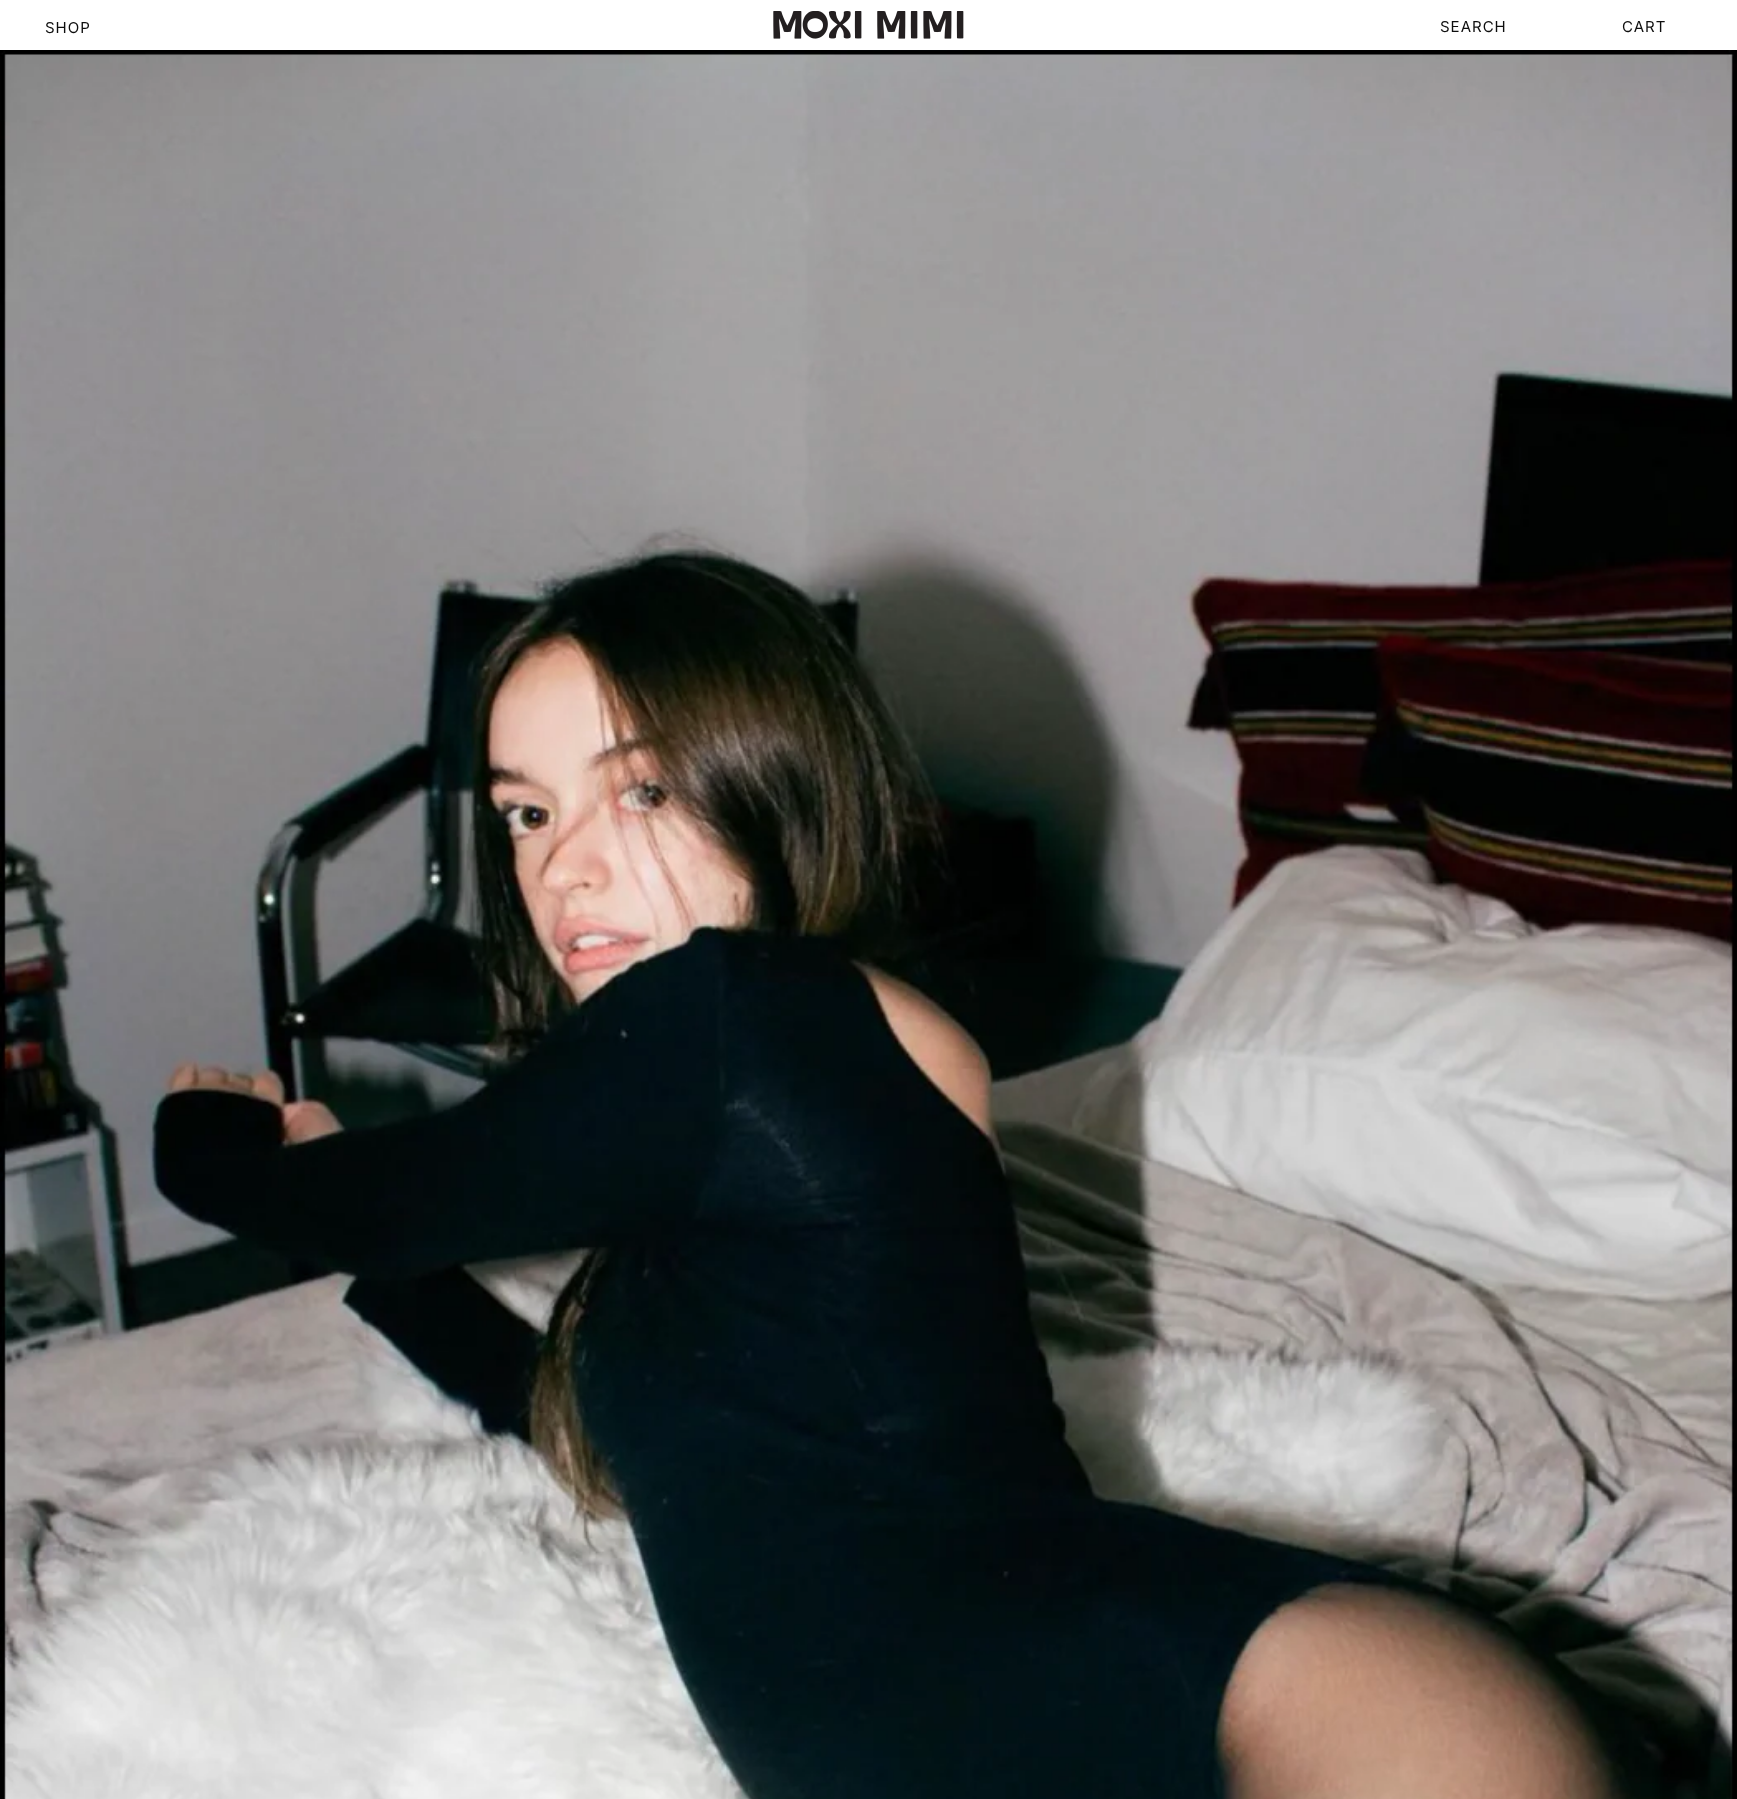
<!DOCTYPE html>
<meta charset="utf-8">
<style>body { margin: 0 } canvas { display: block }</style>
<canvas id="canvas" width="1737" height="1799"></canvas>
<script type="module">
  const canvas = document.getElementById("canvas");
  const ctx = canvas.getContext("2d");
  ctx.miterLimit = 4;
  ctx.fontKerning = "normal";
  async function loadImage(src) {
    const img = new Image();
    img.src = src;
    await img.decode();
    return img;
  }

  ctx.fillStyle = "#ffffff";
  ctx.fillRect(0, 0, 1737, 1799);
  ctx.letterSpacing = "1px";
  ctx.font = "15px Inter";
  ctx.fillStyle = "#0e0e0e";
  ctx.fillText("SHOP", 45, 33);
  ctx.drawImage(await loadImage("img1.png"), 773, 11, 191, 28);
  ctx.fillText("SEARCH", 1440, 32);
  ctx.fillText("CART", 1622, 32);
  ctx.drawImage(await loadImage("img2.png"), 0, 50, 1737, 1749);
</script>
